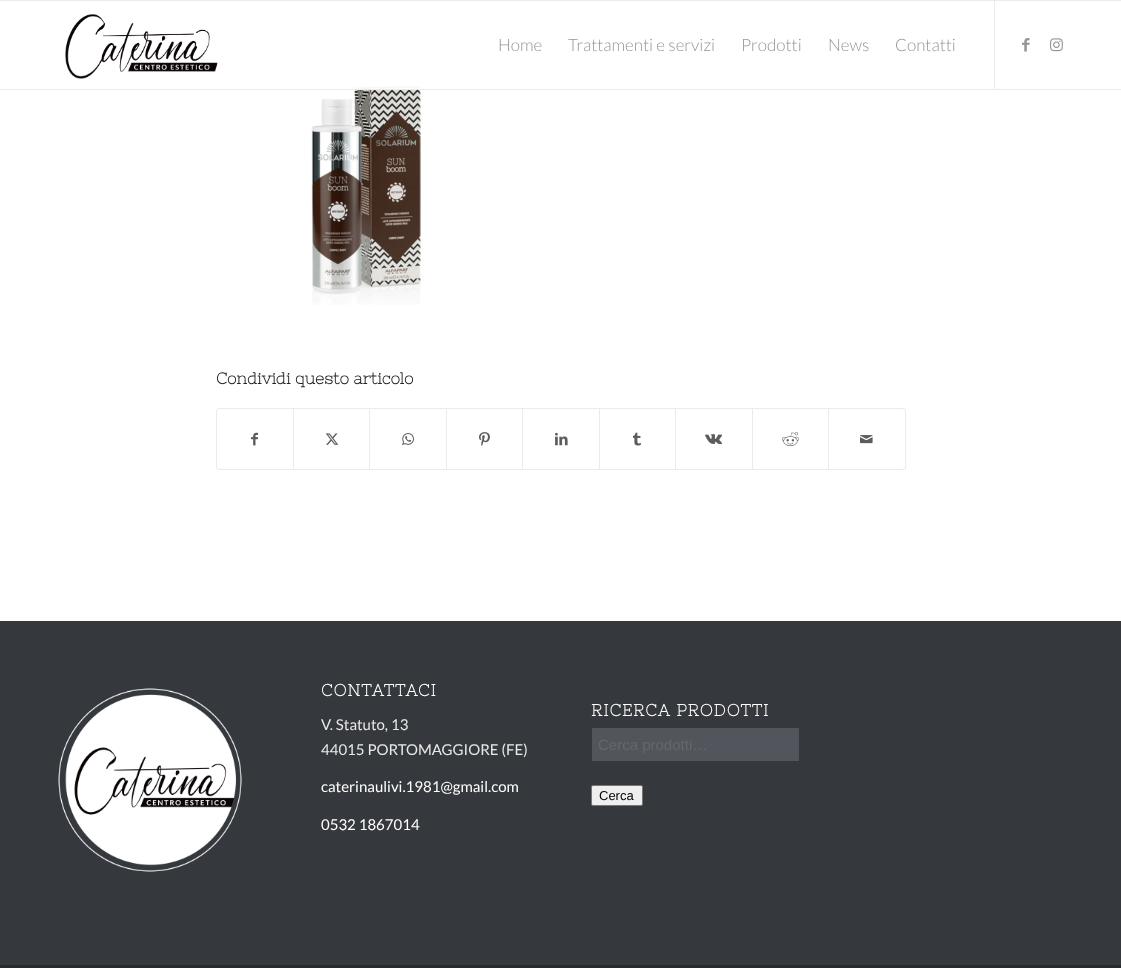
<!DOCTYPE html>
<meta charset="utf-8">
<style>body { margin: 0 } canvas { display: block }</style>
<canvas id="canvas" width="1121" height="968"></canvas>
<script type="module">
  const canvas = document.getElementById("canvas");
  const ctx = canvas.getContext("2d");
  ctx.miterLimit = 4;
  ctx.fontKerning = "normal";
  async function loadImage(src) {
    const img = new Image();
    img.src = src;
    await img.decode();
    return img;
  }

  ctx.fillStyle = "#ffffff";
  ctx.fillRect(0, 0, 1121, 968);
  ctx.fillStyle = "#ebebeb";
  ctx.fillRect(0, 0, 1121, 1);
  ctx.drawImage(await loadImage("img4.png"), 311, 85, 111, 220);
  ctx.fillRect(0, 89, 1121, 1);
  ctx.drawImage(await loadImage("img1.png"), 65, 14, 153, 65);
  ctx.fillRect(994, 1, 1, 88);
  ctx.font = "300 17px Lato";
  ctx.fillStyle = "#969696";
  ctx.fillText("Home", 498, 51);
  ctx.fillText("Trattamenti e servizi", 568, 51);
  ctx.fillText("Prodotti", 741, 51);
  ctx.fillText("News", 828, 51);
  ctx.fillText("Contatti", 895, 51);
  ctx.drawImage(await loadImage("img2.png"), 1022, 38, 8, 14);
  ctx.drawImage(await loadImage("img3.png"), 1050, 38, 13, 14);
  ctx.fillStyle = "rgba(255, 255, 255, 0.95)";
  ctx.fillRect(354, 85, 68, 4);
  ctx.font = "bold 16px Nixie One";
  ctx.fillStyle = "#222222";
  ctx.fillText("Condividi questo articolo", 216, 384);
  ctx.beginPath();
  ctx.roundRect(216.5, 408.5, 689, 61, 2.5);
  ctx.strokeStyle = "#ebebeb";
  ctx.stroke();
  ctx.drawImage(await loadImage("img5.png"), 251, 432, 7, 14);
  ctx.fillStyle = "#ebebeb";
  ctx.fillRect(293, 409, 1, 60);
  ctx.drawImage(await loadImage("img6.png"), 325, 433, 14, 12);
  ctx.fillRect(369, 409, 1, 60);
  ctx.drawImage(await loadImage("img7.png"), 402, 433, 12, 13);
  ctx.fillRect(446, 409, 1, 60);
  ctx.drawImage(await loadImage("img8.png"), 479, 432, 11, 14);
  ctx.fillRect(522, 409, 1, 60);
  ctx.drawImage(await loadImage("img9.png"), 555, 432, 13, 14);
  ctx.fillRect(599, 409, 1, 60);
  ctx.drawImage(await loadImage("img10.png"), 633, 432, 8, 14);
  ctx.fillRect(675, 409, 1, 60);
  ctx.drawImage(await loadImage("img11.png"), 705, 434, 17, 10);
  ctx.fillRect(752, 409, 1, 60);
  ctx.drawImage(await loadImage("img12.png"), 782, 432, 17, 15);
  ctx.fillRect(828, 409, 1, 60);
  ctx.drawImage(await loadImage("img13.png"), 860, 435, 13, 9);
  ctx.fillStyle = "#35383c";
  ctx.fillRect(0, 621, 1121, 344);
  ctx.drawImage(await loadImage("img14.png"), 58, 688, 184, 184);
  ctx.letterSpacing = "1px";
  ctx.font = "bold 16.5px Nixie One";
  ctx.fillStyle = "#ffffff";
  ctx.fillText("CONTATTACI", 321, 696);
  ctx.letterSpacing = "0px";
  ctx.font = "15px Lato";
  ctx.fillStyle = "#e8e8e8";
  ctx.fillText("V. Statuto, 13", 321, 730);
  ctx.fillText("44015 PORTOMAGGIORE (FE)", 321, 755);
  ctx.fillStyle = "#ffffff";
  ctx.fillText("caterinaulivi.1981@gmail.com", 321, 792);
  ctx.fillText("0532 1867014", 321, 830);
  ctx.letterSpacing = "1px";
  ctx.font = "bold 16.5px Nixie One";
  ctx.fillText("RICERCA PRODOTTI", 591, 716);
  ctx.fillStyle = "#52565c";
  ctx.fillRect(592, 728, 207, 33);
  ctx.letterSpacing = "0px";
  ctx.font = "15px Liberation Sans";
  ctx.fillStyle = "#65676a";
  ctx.fillText("Cerca prodotti…", 598, 750);
  ctx.fillStyle = "#efefef";
  ctx.beginPath();
  ctx.roundRect(591.5, 785.5, 51, 20, 1.5);
  ctx.fill();
  ctx.strokeStyle = "#767676";
  ctx.stroke();
  ctx.font = "13px Liberation Sans";
  ctx.fillStyle = "#000000";
  ctx.fillText("Cerca", 599, 800);
  ctx.fillStyle = "#282b2e";
  ctx.fillRect(0, 965, 1121, 3);
</script>
